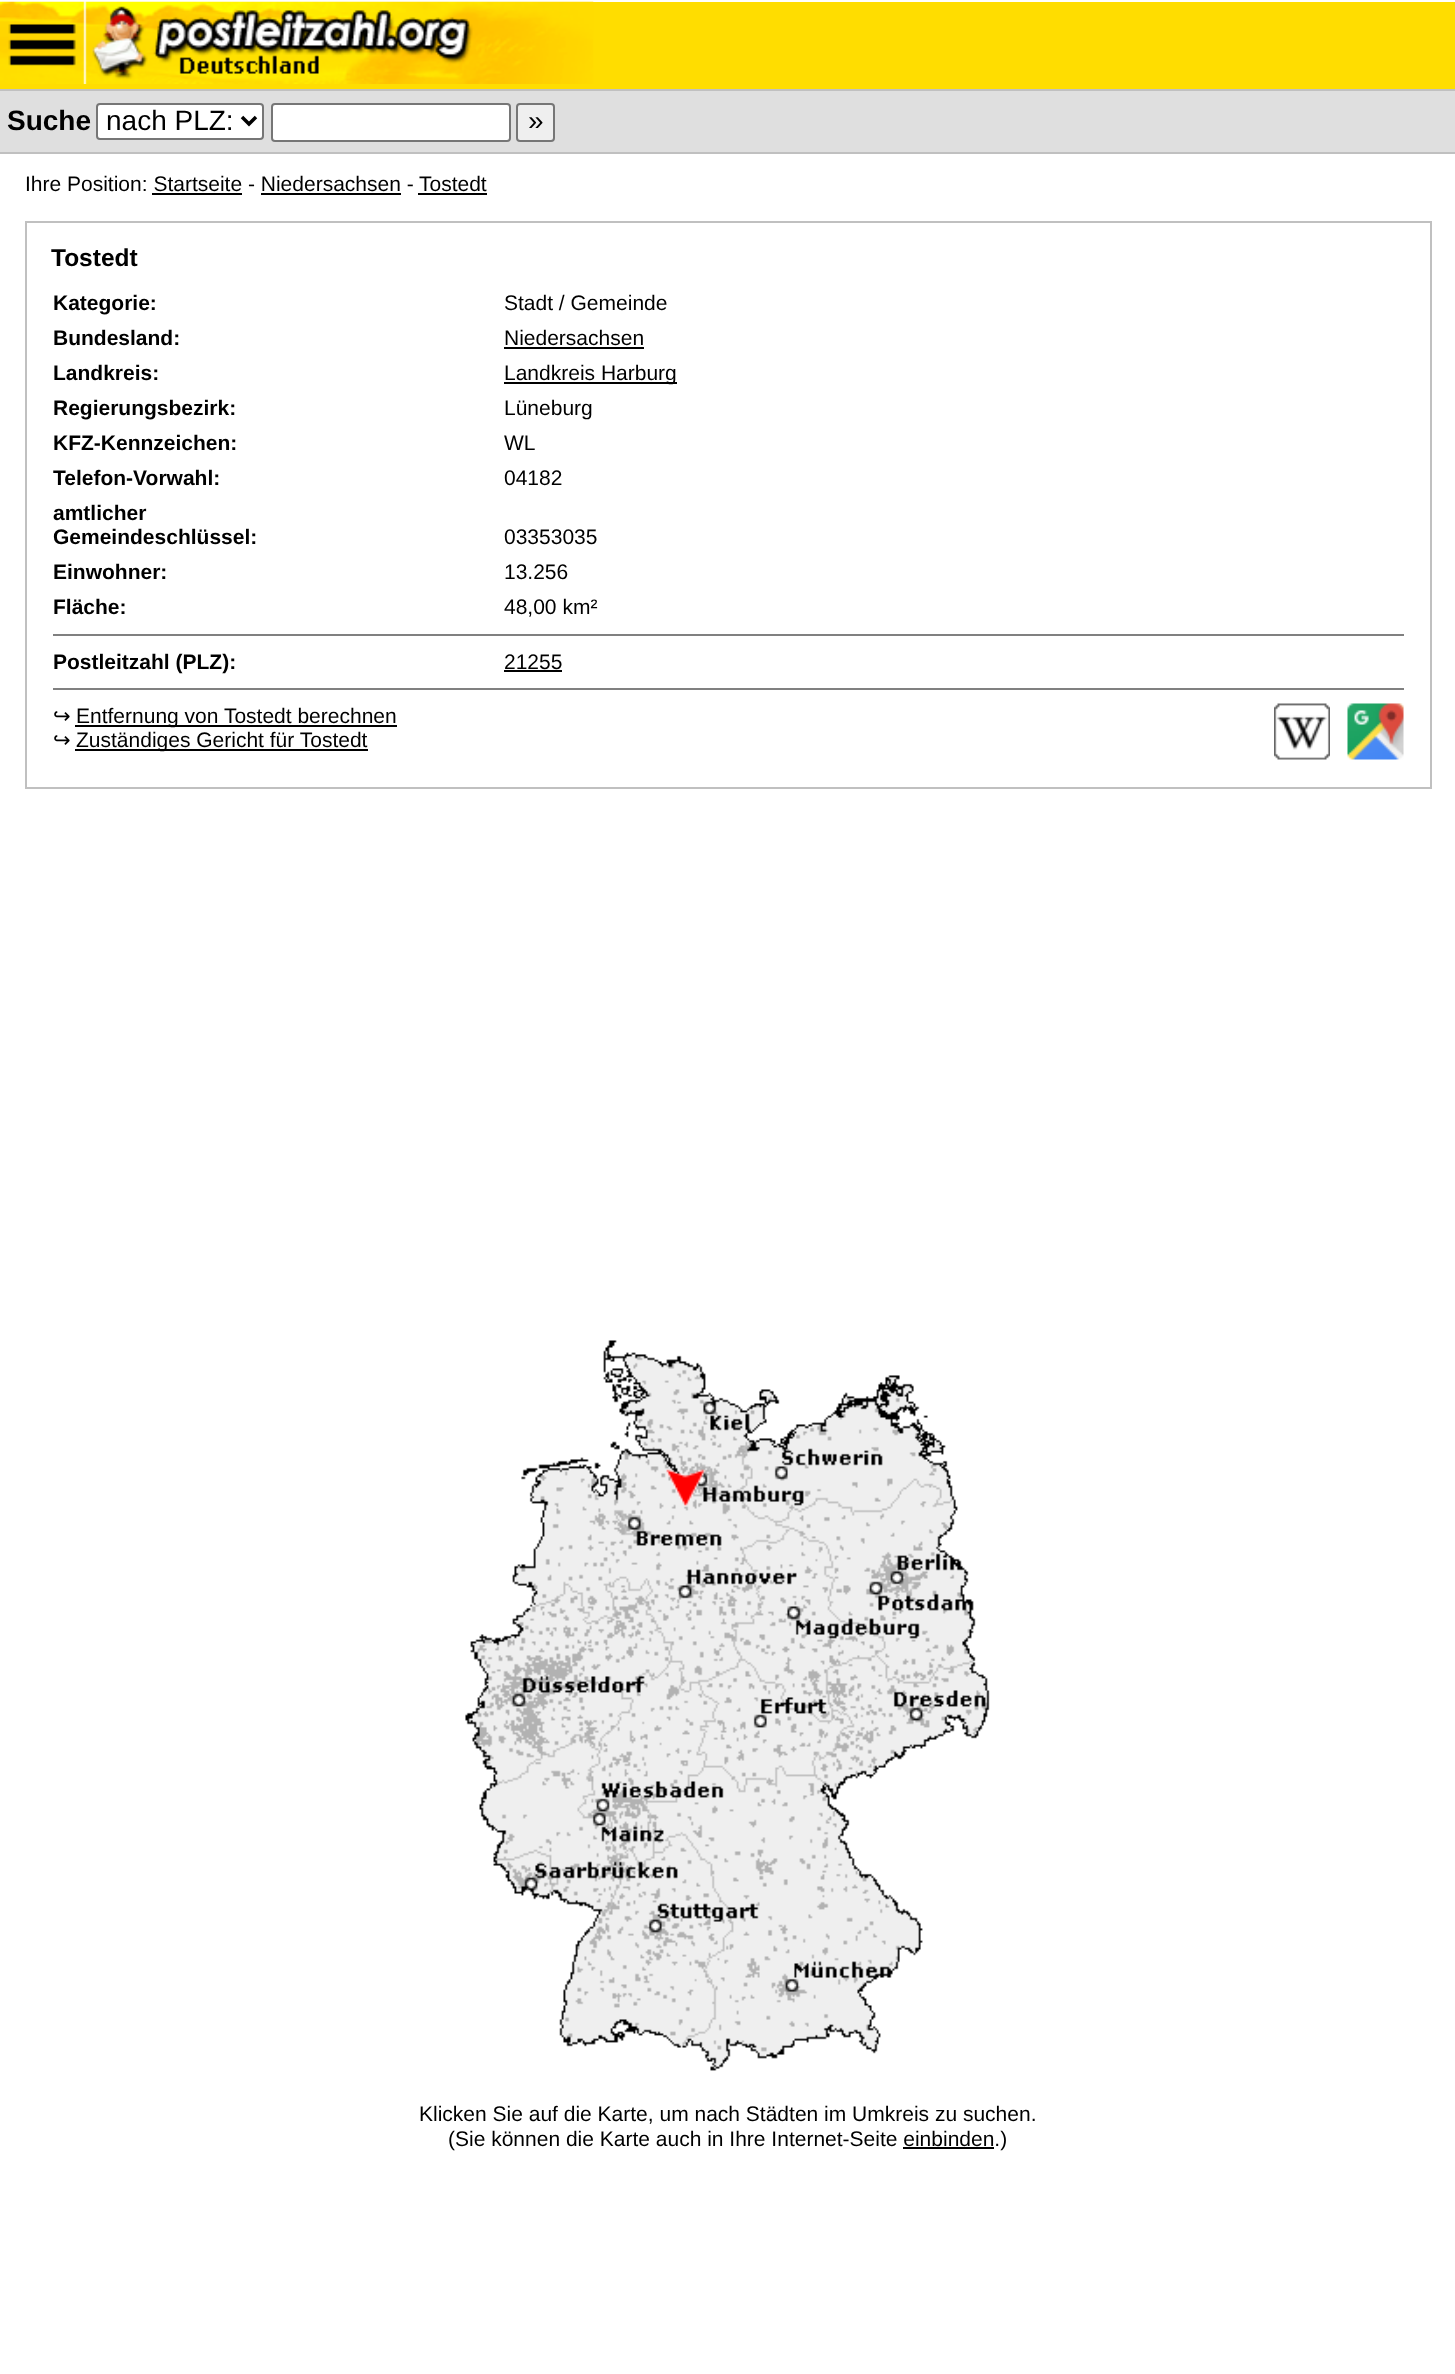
<!DOCTYPE html>
<meta charset="utf-8">
<style>body { margin: 0 } canvas { display: block }</style>
<canvas id="canvas" width="1455" height="2374"></canvas>
<script type="module">
  const canvas = document.getElementById("canvas");
  const ctx = canvas.getContext("2d");
  ctx.miterLimit = 4;
  ctx.fontKerning = "normal";
  async function loadImage(src) {
    const img = new Image();
    img.src = src;
    await img.decode();
    return img;
  }

  ctx.fillStyle = "#ffffff";
  ctx.fillRect(0, 0, 1455, 2374);
  ctx.fillStyle = "#ffdd00";
  ctx.fillRect(0, 2, 1455, 87);
  ctx.fillStyle = "#c0c0c0";
  ctx.fillRect(0, 89, 1455, 2);
  ctx.drawImage(await loadImage("img1.png"), 0, 1, 594, 83);
  ctx.fillStyle = "#dfdfdf";
  ctx.fillRect(0, 91, 1455, 61);
  ctx.fillStyle = "#c0c0c0";
  ctx.fillRect(0, 152, 1455, 2);
  ctx.font = "bold 28px Liberation Sans";
  ctx.fillStyle = "#000000";
  ctx.fillText("Suche", 7, 130);
  ctx.fillStyle = "#ffffff";
  ctx.beginPath();
  ctx.roundRect(97, 104, 166, 35, 3);
  ctx.fill();
  ctx.strokeStyle = "#767676";
  ctx.lineWidth = 2;
  ctx.stroke();
  ctx.beginPath();
  ctx.moveTo(242, 117);
  ctx.lineTo(249, 124);
  ctx.lineTo(256, 117);
  ctx.strokeStyle = "#000000";
  ctx.lineWidth = 3.5;
  ctx.stroke();
  ctx.font = "28px Liberation Sans";
  ctx.fillStyle = "#000000";
  ctx.fillText("nach PLZ:", 106, 130);
  ctx.fillStyle = "#ffffff";
  ctx.beginPath();
  ctx.roundRect(272, 104, 238, 37, 3);
  ctx.fill();
  ctx.strokeStyle = "#767676";
  ctx.lineWidth = 2;
  ctx.stroke();
  ctx.fillStyle = "#efefef";
  ctx.beginPath();
  ctx.roundRect(517, 104, 37, 37, 3);
  ctx.fill();
  ctx.stroke();
  ctx.fillStyle = "#000000";
  ctx.fillText("»", 528, 130);
  ctx.font = "21px Liberation Sans";
  ctx.fillText("Ihre Position: Startseite - Niedersachsen -", 25, 191);
  ctx.fillText("Tostedt", 419, 191);
  ctx.fillRect(418, 193, 69, 2);
  ctx.fillRect(152, 193, 90, 2);
  ctx.fillRect(261, 193, 140, 2);
  ctx.strokeStyle = "#c0c0c0";
  ctx.strokeRect(26, 222, 1405, 566);
  ctx.font = "bold 24.5px Liberation Sans";
  ctx.fillText("Tostedt", 51, 266);
  ctx.font = "bold 21px Liberation Sans";
  ctx.fillText("Kategorie:", 53, 310);
  ctx.font = "21px Liberation Sans";
  ctx.fillText("Stadt / Gemeinde", 504, 310);
  ctx.font = "bold 21px Liberation Sans";
  ctx.fillText("Bundesland:", 53, 345);
  ctx.font = "21px Liberation Sans";
  ctx.fillText("Niedersachsen", 504, 345);
  ctx.fillRect(504, 347, 140, 2);
  ctx.font = "bold 21px Liberation Sans";
  ctx.fillText("Landkreis:", 53, 380);
  ctx.fillRect(504, 382, 173, 2);
  ctx.font = "21px Liberation Sans";
  ctx.fillText("Landkreis Harburg", 504, 380);
  ctx.font = "bold 21px Liberation Sans";
  ctx.fillText("Regierungsbezirk:", 53, 415);
  ctx.font = "21px Liberation Sans";
  ctx.fillText("Lüneburg", 504, 415);
  ctx.font = "bold 21px Liberation Sans";
  ctx.fillText("KFZ-Kennzeichen:", 53, 450);
  ctx.font = "21px Liberation Sans";
  ctx.fillText("WL", 504, 450);
  ctx.font = "bold 21px Liberation Sans";
  ctx.fillText("Telefon-Vorwahl:", 53, 485);
  ctx.font = "21px Liberation Sans";
  ctx.fillText("04182", 504, 485);
  ctx.font = "bold 21px Liberation Sans";
  ctx.fillText("amtlicher", 53, 520);
  ctx.fillText("Gemeindeschlüssel:", 53, 544);
  ctx.font = "21px Liberation Sans";
  ctx.fillText("03353035", 504, 544);
  ctx.font = "bold 21px Liberation Sans";
  ctx.fillText("Einwohner:", 53, 579);
  ctx.font = "21px Liberation Sans";
  ctx.fillText("13.256", 504, 579);
  ctx.font = "bold 21px Liberation Sans";
  ctx.fillText("Fläche:", 53, 614);
  ctx.font = "21px Liberation Sans";
  ctx.fillText("48,00 km²", 504, 614);
  ctx.fillStyle = "#808080";
  ctx.fillRect(53, 634, 1351, 2);
  ctx.font = "bold 21px Liberation Sans";
  ctx.fillStyle = "#000000";
  ctx.fillText("Postleitzahl (PLZ):", 53, 669);
  ctx.font = "21px Liberation Sans";
  ctx.fillText("21255", 504, 669);
  ctx.fillRect(504, 670, 58, 2);
  ctx.fillStyle = "#808080";
  ctx.fillRect(53, 688, 1351, 2);
  ctx.font = "21px DejaVu Sans";
  ctx.fillStyle = "#000000";
  ctx.fillText("↪", 53, 723);
  ctx.fillRect(75, 725, 322, 2);
  ctx.font = "21px Liberation Sans";
  ctx.fillText("Entfernung von Tostedt berechnen", 76, 723);
  ctx.font = "21px DejaVu Sans";
  ctx.fillText("↪", 53, 747);
  ctx.fillRect(75, 749, 293, 2);
  ctx.font = "21px Liberation Sans";
  ctx.fillText("Zuständiges Gericht für Tostedt", 76, 747);
  ctx.drawImage(await loadImage("img2.png"), 1274, 703, 56, 57);
  ctx.drawImage(await loadImage("img3.png"), 1347, 703, 57, 57);
  ctx.drawImage(await loadImage("img4.png"), 465, 1340, 525, 731);
  ctx.fillText("Klicken Sie auf die Karte, um nach Städten im Umkreis zu suchen.", 419, 2121);
  ctx.fillText("(Sie können die Karte auch in Ihre Internet-Seite einbinden.)", 448, 2146);
  ctx.fillRect(903, 2147, 91, 2);
</script>
